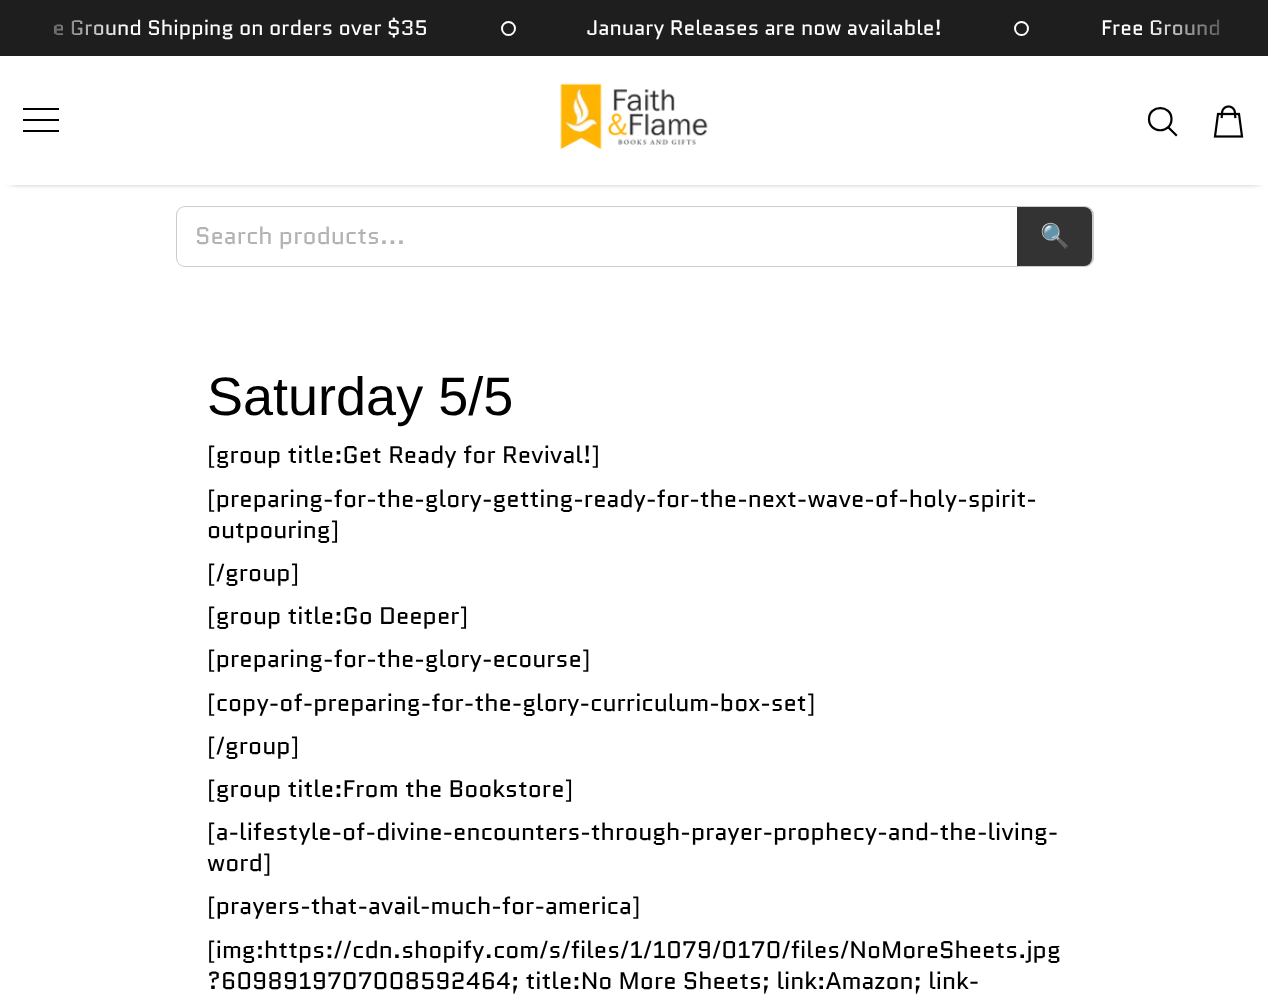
<!DOCTYPE html>
<meta charset="utf-8">
<style>body { margin: 0 } canvas { display: block }</style>
<canvas id="canvas" width="1268" height="1000"></canvas>
<script type="module">
  const canvas = document.getElementById("canvas");
  const ctx = canvas.getContext("2d");
  ctx.miterLimit = 4;
  ctx.fontKerning = "normal";
  async function loadImage(src) {
    const img = new Image();
    img.src = src;
    await img.decode();
    return img;
  }
  let gradient;

  ctx.fillStyle = "#ffffff";
  ctx.fillRect(0, 0, 1268, 1000);
  ctx.fillStyle = "#1e1e1e";
  ctx.fillRect(0, 0, 1268, 56);
  ctx.font = "21px Quantico";
  ctx.fillStyle = "#ffffff";
  ctx.fillText("e Ground Shipping on orders over $35", 53, 35);
  ctx.beginPath();
  ctx.arc(508.5, 28.5, 6.5, 0, Math.PI * 2);
  ctx.strokeStyle = "#ffffff";
  ctx.lineWidth = 2;
  ctx.stroke();
  ctx.fillText("January Releases are now available!", 587, 35);
  ctx.beginPath();
  ctx.arc(1021.5, 28.5, 6.5, 0, Math.PI * 2);
  ctx.stroke();
  ctx.fillText("Free Ground", 1101, 35);
  gradient = ctx.createLinearGradient(123, 28, 21, 28);
  gradient.addColorStop(0, "rgba(30, 30, 30, 0)");
  gradient.addColorStop(1, "#1e1e1e");
  ctx.fillStyle = gradient;
  ctx.fillRect(55, 20, 66, 16);
  gradient = ctx.createLinearGradient(1146, 28, 1248, 28);
  gradient.addColorStop(0, "rgba(30, 30, 30, 0)");
  gradient.addColorStop(1, "#1e1e1e");
  ctx.fillStyle = gradient;
  ctx.fillRect(1151, 19, 69, 17);
  ctx.fillStyle = "#000000";
  ctx.filter = "blur(4px)";
  ctx.beginPath();
  ctx.rect(11, 72, 1248, 108);
  ctx.fill();
  ctx.filter = "none";
  ctx.fillStyle = "#ffffff";
  ctx.fillRect(2, 63, 1266, 122);
  ctx.fillStyle = "#000000";
  ctx.fillRect(23, 108, 36, 2);
  ctx.fillRect(23, 119, 36, 2);
  ctx.fillRect(23, 130, 36, 2);
  ctx.drawImage(await loadImage("img1.png"), 560, 83, 148, 67);
  ctx.beginPath();
  ctx.moveTo(1168.5, 127.5);
  ctx.lineTo(1176, 135);
  ctx.strokeStyle = "#000000";
  ctx.lineWidth = 2.2;
  ctx.lineCap = "square";
  ctx.lineJoin = "round";
  ctx.stroke();
  ctx.beginPath();
  ctx.moveTo(1171.5, 119);
  ctx.bezierCurveTo(1171.5, 104.5, 1149, 104.5, 1149, 119);
  ctx.bezierCurveTo(1149, 134, 1171.5, 134, 1171.5, 119);
  ctx.closePath();
  ctx.lineCap = "round";
  ctx.stroke();
  ctx.drawImage(await loadImage("img2.png"), 1213, 105, 31, 33);
  ctx.beginPath();
  ctx.roundRect(177, 207, 916, 59, 8);
  ctx.strokeStyle = "#cccccc";
  ctx.lineWidth = 2;
  ctx.lineJoin = "miter";
  ctx.stroke();
  ctx.fillStyle = "#ffffff";
  ctx.beginPath();
  ctx.roundRect(177, 207, 840, 59, [8, 0, 0, 8]);
  ctx.fill();
  ctx.font = "24px Quantico";
  ctx.fillStyle = "#b3b3b3";
  ctx.fillText("Search products...", 195, 244);
  ctx.fillStyle = "#333333";
  ctx.beginPath();
  ctx.roundRect(1017, 207, 75, 59, [0, 8, 8, 0]);
  ctx.fill();
  ctx.font = "24px Noto Color Emoji";
  ctx.fillStyle = "#ffffff";
  ctx.fillText("🔍", 1040, 244);
  ctx.font = "54px Liberation Sans";
  ctx.fillStyle = "#000000";
  ctx.fillText("Saturday 5/5", 207, 415);
  ctx.font = "24px Quantico";
  ctx.fillText("[group title:Get Ready for Revival!]", 207, 463);
  ctx.fillText("[preparing-for-the-glory-getting-ready-for-the-next-wave-of-holy-spirit-", 207, 507);
  ctx.fillText("outpouring]", 207, 538);
  ctx.fillText("[/group]", 207, 581);
  ctx.fillText("[group title:Go Deeper]", 207, 624);
  ctx.fillText("[preparing-for-the-glory-ecourse]", 207, 667);
  ctx.fillText("[copy-of-preparing-for-the-glory-curriculum-box-set]", 207, 711);
  ctx.fillText("[/group]", 207, 754);
  ctx.fillText("[group title:From the Bookstore]", 207, 797);
  ctx.fillText("[a-lifestyle-of-divine-encounters-through-prayer-prophecy-and-the-living-", 207, 840);
  ctx.fillText("word]", 207, 871);
  ctx.fillText("[prayers-that-avail-much-for-america]", 207, 914);
  ctx.fillText("[img:https://cdn.shopify.com/s/files/1/1079/0170/files/NoMoreSheets.jpg", 207, 958);
  ctx.fillText("?6098919707008592464; title:No More Sheets; link:Amazon; link-", 207, 989);
</script>
